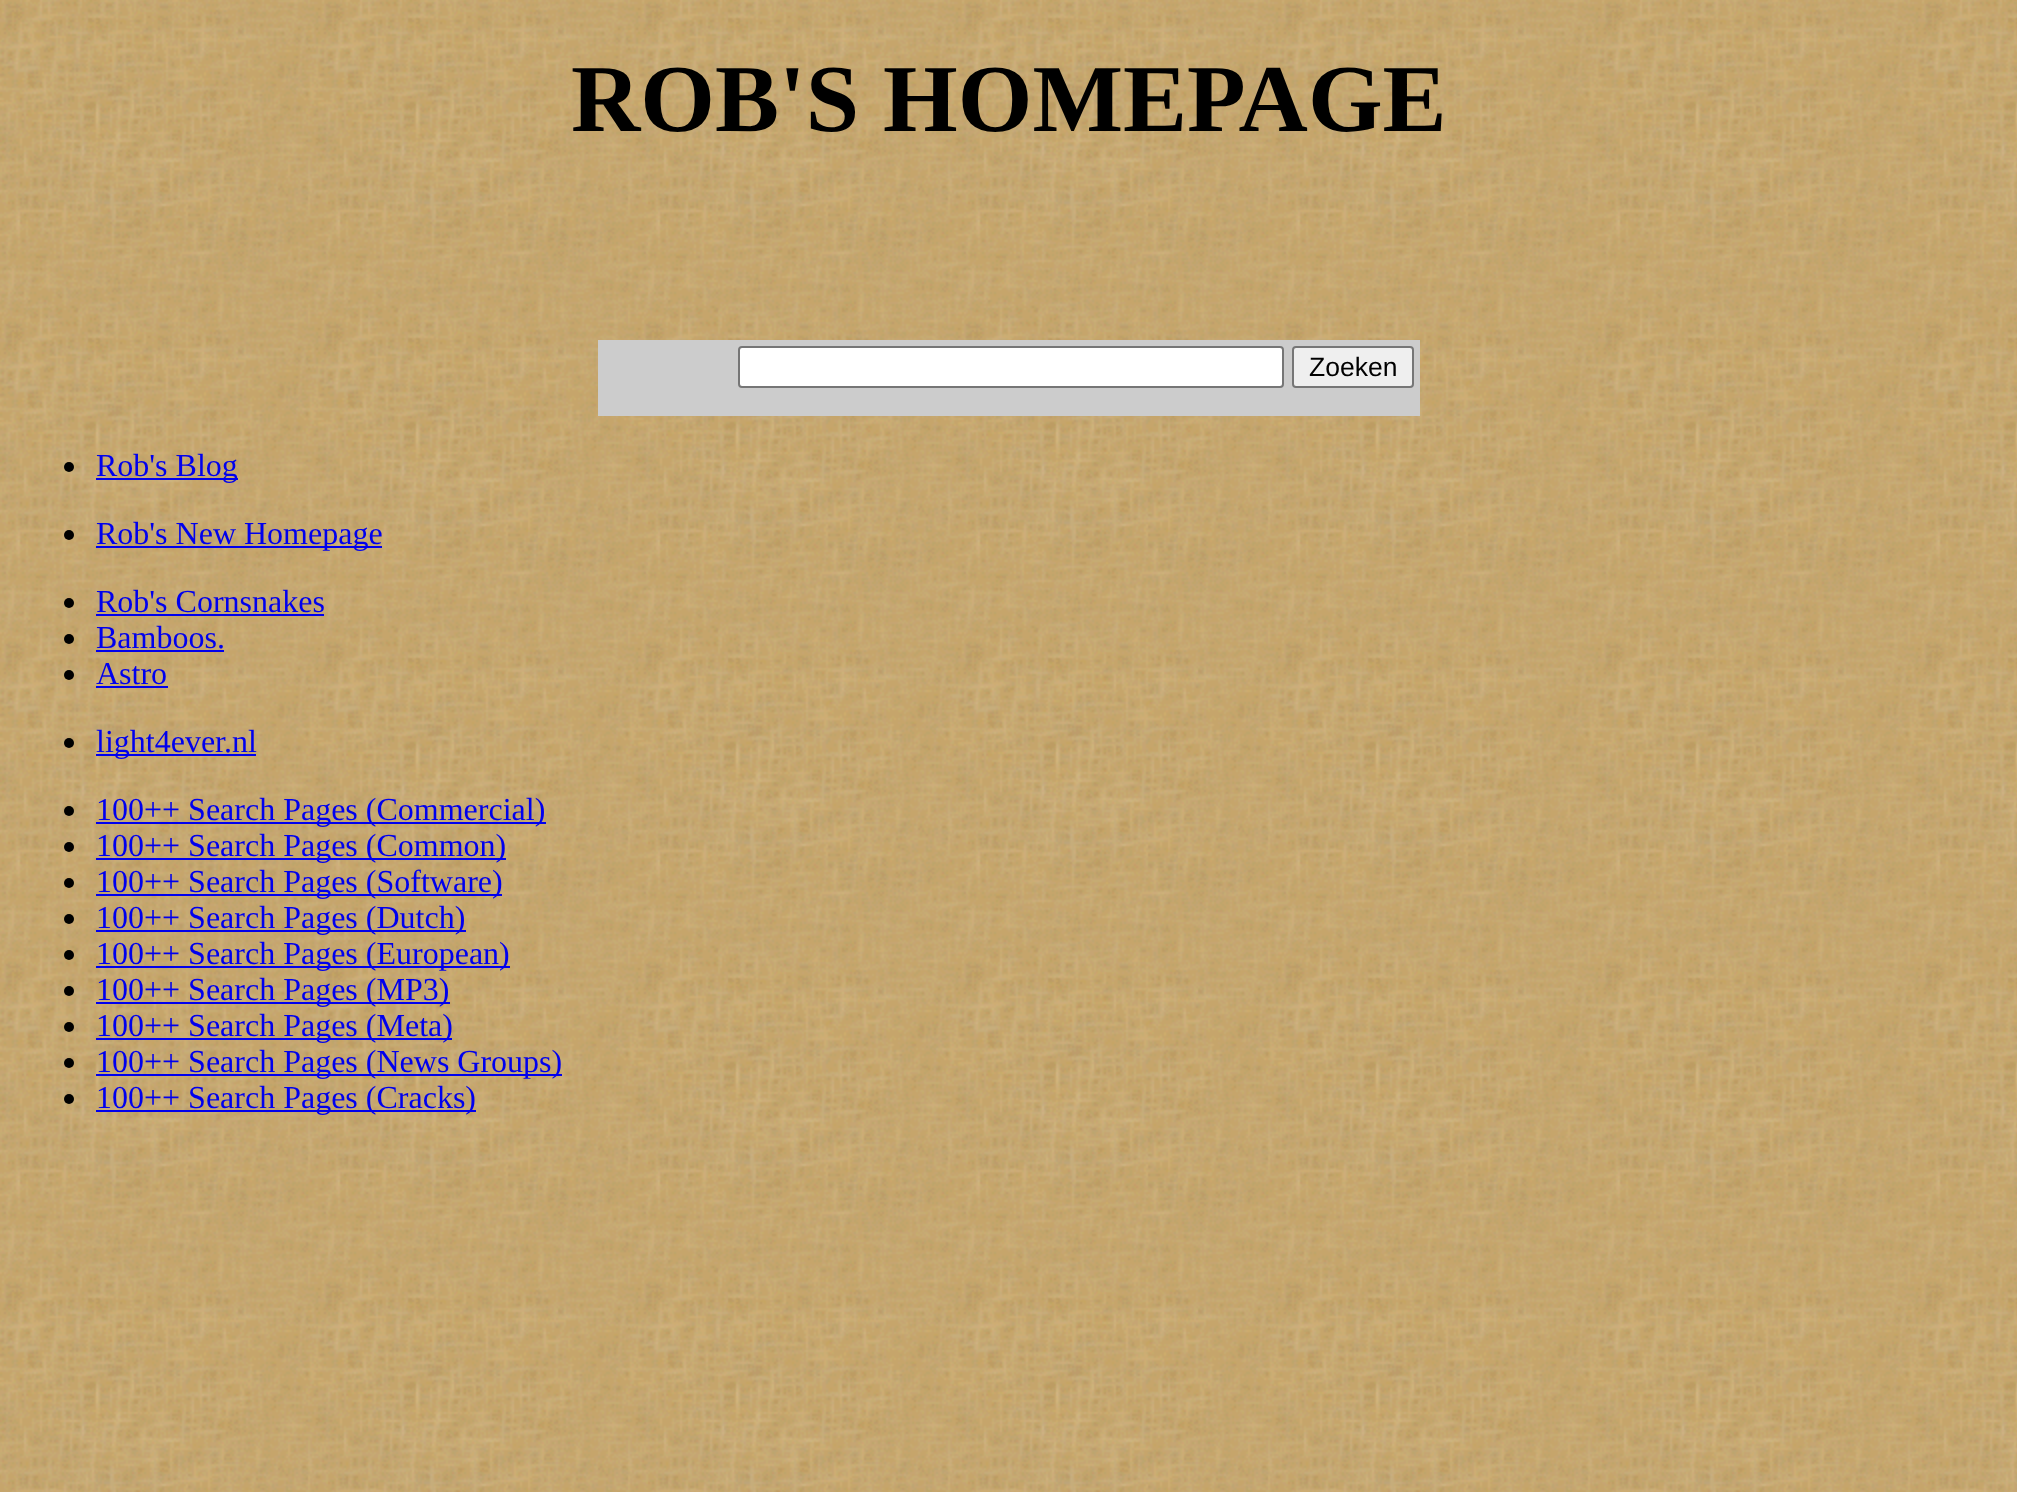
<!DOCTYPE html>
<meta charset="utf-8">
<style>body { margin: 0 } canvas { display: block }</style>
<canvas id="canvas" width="2017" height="1492"></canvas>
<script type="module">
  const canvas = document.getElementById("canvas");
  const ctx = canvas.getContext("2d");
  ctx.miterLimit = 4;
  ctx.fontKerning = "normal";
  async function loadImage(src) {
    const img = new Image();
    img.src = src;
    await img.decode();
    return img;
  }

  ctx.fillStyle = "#ffffff";
  ctx.fillRect(0, 0, 2017, 1492);
  ctx.drawImage(await loadImage("img1.png"), 0, 0, 2017, 1492);
  ctx.font = "bold 96px Liberation Serif";
  ctx.fillStyle = "#000000";
  ctx.fillText("ROB'S HOMEPAGE", 571, 131);
  ctx.fillStyle = "#cccccc";
  ctx.fillRect(598, 340, 822, 76);
  ctx.fillStyle = "#ffffff";
  ctx.beginPath();
  ctx.roundRect(739, 347, 544, 40, 3);
  ctx.fill();
  ctx.strokeStyle = "#767676";
  ctx.lineWidth = 2;
  ctx.stroke();
  ctx.fillStyle = "#efefef";
  ctx.beginPath();
  ctx.roundRect(1293, 347, 120, 40, 3);
  ctx.fill();
  ctx.stroke();
  ctx.font = "26.5px Liberation Sans";
  ctx.fillStyle = "#000000";
  ctx.fillText("Zoeken", 1309, 376);
  ctx.beginPath();
  ctx.arc(69, 467, 5, 0, Math.PI * 2);
  ctx.fill();
  ctx.fillStyle = "#0000ee";
  ctx.fillRect(96, 478, 142, 2);
  ctx.font = "32px Liberation Serif";
  ctx.fillText("Rob's Blog", 96, 476);
  ctx.fillStyle = "#000000";
  ctx.beginPath();
  ctx.arc(69, 535, 5, 0, Math.PI * 2);
  ctx.fill();
  ctx.fillStyle = "#0000ee";
  ctx.fillRect(96, 546, 286, 2);
  ctx.fillText("Rob's New Homepage", 96, 544);
  ctx.fillStyle = "#000000";
  ctx.beginPath();
  ctx.arc(69, 603, 5, 0, Math.PI * 2);
  ctx.fill();
  ctx.fillStyle = "#0000ee";
  ctx.fillText("Rob's Cornsnakes", 96, 612);
  ctx.fillRect(96, 614, 228, 2);
  ctx.fillStyle = "#000000";
  ctx.beginPath();
  ctx.arc(69, 639, 5, 0, Math.PI * 2);
  ctx.fill();
  ctx.fillStyle = "#0000ee";
  ctx.fillText("Bamboos.", 96, 648);
  ctx.fillRect(96, 650, 128, 2);
  ctx.fillStyle = "#000000";
  ctx.beginPath();
  ctx.arc(69, 675, 5, 0, Math.PI * 2);
  ctx.fill();
  ctx.fillStyle = "#0000ee";
  ctx.fillText("Astro", 96, 684);
  ctx.fillRect(96, 686, 72, 2);
  ctx.fillStyle = "#000000";
  ctx.beginPath();
  ctx.arc(69, 743, 5, 0, Math.PI * 2);
  ctx.fill();
  ctx.fillStyle = "#0000ee";
  ctx.fillRect(96, 754, 160, 2);
  ctx.fillText("light4ever.nl", 96, 752);
  ctx.fillStyle = "#000000";
  ctx.beginPath();
  ctx.arc(69, 811, 5, 0, Math.PI * 2);
  ctx.fill();
  ctx.fillStyle = "#0000ee";
  ctx.fillRect(96, 822, 450, 2);
  ctx.fillText("100++ Search Pages (Commercial)", 96, 820);
  ctx.fillStyle = "#000000";
  ctx.beginPath();
  ctx.arc(69, 847, 5, 0, Math.PI * 2);
  ctx.fill();
  ctx.fillStyle = "#0000ee";
  ctx.fillRect(96, 858, 410, 2);
  ctx.fillText("100++ Search Pages (Common)", 96, 856);
  ctx.fillStyle = "#000000";
  ctx.beginPath();
  ctx.arc(69, 883, 5, 0, Math.PI * 2);
  ctx.fill();
  ctx.fillStyle = "#0000ee";
  ctx.fillRect(96, 894, 406, 2);
  ctx.fillText("100++ Search Pages (Software)", 96, 892);
  ctx.fillStyle = "#000000";
  ctx.beginPath();
  ctx.arc(69, 919, 5, 0, Math.PI * 2);
  ctx.fill();
  ctx.fillStyle = "#0000ee";
  ctx.fillRect(96, 930, 370, 2);
  ctx.fillText("100++ Search Pages (Dutch)", 96, 928);
  ctx.fillStyle = "#000000";
  ctx.beginPath();
  ctx.arc(69, 955, 5, 0, Math.PI * 2);
  ctx.fill();
  ctx.fillStyle = "#0000ee";
  ctx.fillRect(96, 966, 414, 2);
  ctx.fillText("100++ Search Pages (European)", 96, 964);
  ctx.fillStyle = "#000000";
  ctx.beginPath();
  ctx.arc(69, 991, 5, 0, Math.PI * 2);
  ctx.fill();
  ctx.fillStyle = "#0000ee";
  ctx.fillRect(96, 1002, 354, 2);
  ctx.fillText("100++ Search Pages (MP3)", 96, 1000);
  ctx.fillStyle = "#000000";
  ctx.beginPath();
  ctx.arc(69, 1027, 5, 0, Math.PI * 2);
  ctx.fill();
  ctx.fillStyle = "#0000ee";
  ctx.fillRect(96, 1038, 356, 2);
  ctx.fillText("100++ Search Pages (Meta)", 96, 1036);
  ctx.fillStyle = "#000000";
  ctx.beginPath();
  ctx.arc(69, 1063, 5, 0, Math.PI * 2);
  ctx.fill();
  ctx.fillStyle = "#0000ee";
  ctx.fillRect(96, 1074, 466, 2);
  ctx.fillText("100++ Search Pages (News Groups)", 96, 1072);
  ctx.fillStyle = "#000000";
  ctx.beginPath();
  ctx.arc(69, 1099, 5, 0, Math.PI * 2);
  ctx.fill();
  ctx.fillStyle = "#0000ee";
  ctx.fillRect(96, 1110, 380, 2);
  ctx.fillText("100++ Search Pages (Cracks)", 96, 1108);
</script>
